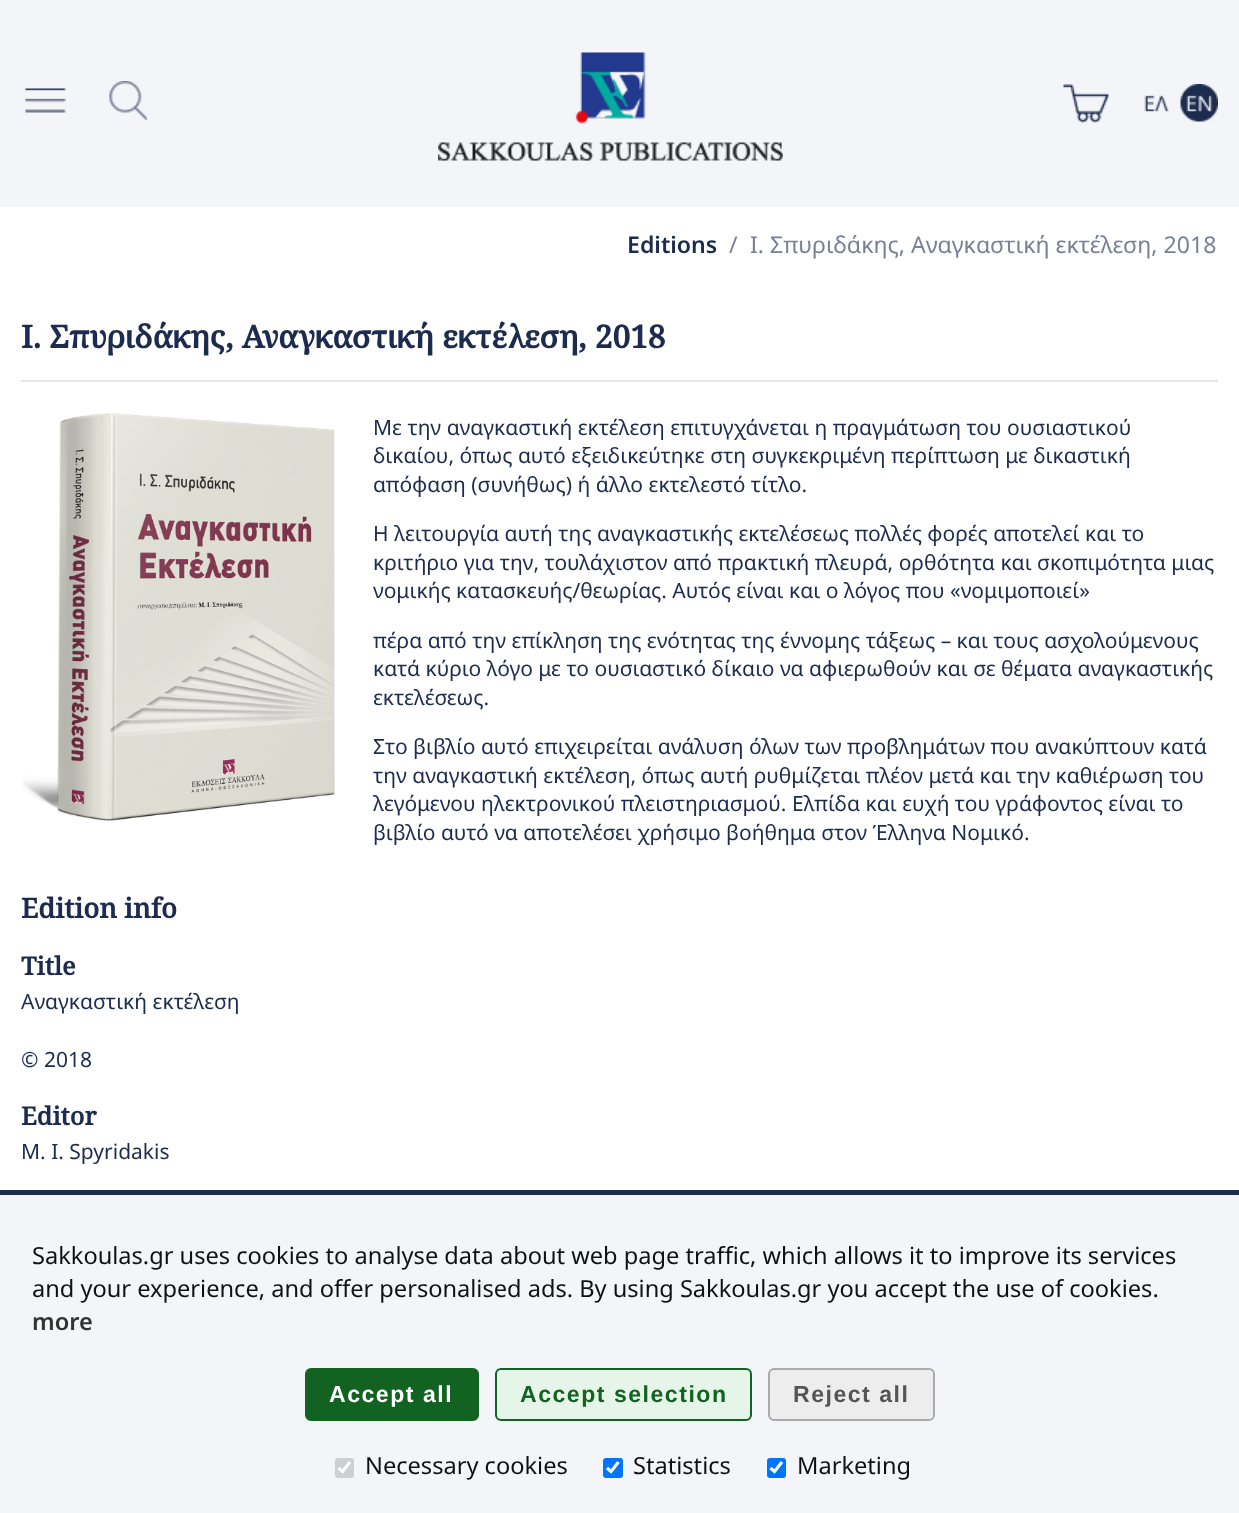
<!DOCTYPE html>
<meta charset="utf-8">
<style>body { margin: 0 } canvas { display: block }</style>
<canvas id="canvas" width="1239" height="1513"></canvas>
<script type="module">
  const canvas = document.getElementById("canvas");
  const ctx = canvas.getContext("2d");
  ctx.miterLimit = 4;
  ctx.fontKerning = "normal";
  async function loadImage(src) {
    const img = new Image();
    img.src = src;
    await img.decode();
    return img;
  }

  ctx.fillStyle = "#ffffff";
  ctx.fillRect(0, 0, 1239, 1513);
  ctx.fillStyle = "#f4f5f9";
  ctx.fillRect(0, 0, 1239, 207);
  ctx.drawImage(await loadImage("img1.png"), 25, 88, 41, 25);
  ctx.drawImage(await loadImage("img2.png"), 109, 81, 38, 39);
  ctx.drawImage(await loadImage("img3.png"), 438, 52, 345, 109);
  ctx.drawImage(await loadImage("img4.png"), 1063, 84, 46, 39);
  ctx.drawImage(await loadImage("img5.png"), 1144, 95, 25, 17);
  ctx.drawImage(await loadImage("img6.png"), 1180, 84, 38, 38);
  ctx.font = "600 23.1px Noto Sans";
  ctx.fillStyle = "#1d2c4e";
  ctx.fillText("Editions", 627, 253);
  ctx.font = "23.1px Noto Sans";
  ctx.fillStyle = "#788195";
  ctx.fillText("/", 729, 253);
  ctx.fillText("Ι. Σπυριδάκης, Αναγκαστική εκτέλεση, 2018", 750, 253);
  ctx.font = "bold 31.5px Noto Serif";
  ctx.fillStyle = "#1d2c4e";
  ctx.fillText("Ι. Σπυριδάκης, Αναγκαστική εκτέλεση, 2018", 21, 348);
  ctx.fillStyle = "#e2e6eb";
  ctx.fillRect(21, 380, 1197, 2);
  ctx.drawImage(await loadImage("img7.png"), 22, 413, 313, 408);
  ctx.font = "21px Noto Sans";
  ctx.fillStyle = "#1d2c4e";
  ctx.fillText("Με την αναγκαστική εκτέλεση επιτυγχάνεται η πραγμάτωση του ουσιαστικού", 373, 435);
  ctx.fillText("δικαίου, όπως αυτό εξειδικεύτηκε στη συγκεκριμένη περίπτωση με δικαστική", 373, 463);
  ctx.fillText("απόφαση (συνήθως) ή άλλο εκτελεστό τίτλο.", 373, 492);
  ctx.fillText("Η λειτουργία αυτή της αναγκαστικής εκτελέσεως πολλές φορές αποτελεί και το", 373, 541);
  ctx.fillText("κριτήριο για την, τουλάχιστον από πρακτική πλευρά, ορθότητα και σκοπιμότητα μιας", 373, 570);
  ctx.fillText("νομικής κατασκευής/θεωρίας. Αυτός είναι και ο λόγος που «νομιμοποιεί»", 373, 598);
  ctx.fillText("πέρα από την επίκληση της ενότητας της έννομης τάξεως – και τους ασχολούμενους", 373, 648);
  ctx.fillText("κατά κύριο λόγο με το ουσιαστικό δίκαιο να αφιερωθούν και σε θέματα αναγκαστικής", 373, 676);
  ctx.fillText("εκτελέσεως.", 373, 705);
  ctx.fillText("Στο βιβλίο αυτό επιχειρείται ανάλυση όλων των προβλημάτων που ανακύπτουν κατά", 373, 754);
  ctx.fillText("την αναγκαστική εκτέλεση, όπως αυτή ρυθμίζεται πλέον μετά και την καθιέρωση του", 373, 783);
  ctx.fillText("λεγόμενου ηλεκτρονικού πλειστηριασμού. Ελπίδα και ευχή του γράφοντος είναι το", 373, 811);
  ctx.fillText("βιβλίο αυτό να αποτελέσει χρήσιμο βοήθημα στον Έλληνα Νομικό.", 373, 840);
  ctx.font = "bold 27.25px Noto Serif";
  ctx.fillText("Edition info", 21, 918);
  ctx.font = "bold 25px Noto Serif";
  ctx.fillText("Title", 21, 975);
  ctx.font = "21px Noto Sans";
  ctx.fillText("Αναγκαστική εκτέλεση", 21, 1009);
  ctx.fillText("© 2018", 21, 1067);
  ctx.font = "bold 25px Noto Serif";
  ctx.fillText("Editor", 21, 1125);
  ctx.font = "21px Noto Sans";
  ctx.fillText("M. I. Spyridakis", 21, 1159);
  ctx.fillStyle = "#f4f5f9";
  ctx.fillRect(0, 1195, 1239, 318);
  ctx.fillStyle = "#1d2c4e";
  ctx.fillRect(0, 1190, 1239, 5);
  ctx.font = "23.6px Noto Sans";
  ctx.fillStyle = "#111111";
  ctx.fillText("Sakkoulas.gr uses cookies to analyse data about web page traffic, which allows it to improve its services", 32, 1264);
  ctx.fillText("and your experience, and offer personalised ads. By using Sakkoulas.gr you accept the use of cookies.", 32, 1297);
  ctx.font = "600 23.6px Noto Sans";
  ctx.fillStyle = "#333333";
  ctx.fillText("more", 32, 1330);
  ctx.fillStyle = "#126321";
  ctx.beginPath();
  ctx.roundRect(306, 1369, 172, 51, 5);
  ctx.fill();
  ctx.strokeStyle = "#126321";
  ctx.lineWidth = 2;
  ctx.stroke();
  ctx.letterSpacing = "1.5px";
  ctx.font = "bold 23.1px Liberation Sans";
  ctx.fillStyle = "#ffffff";
  ctx.fillText("Accept all", 329, 1402);
  ctx.fillStyle = "#e5f6e8";
  ctx.beginPath();
  ctx.roundRect(496, 1369, 255, 51, 5);
  ctx.fill();
  ctx.stroke();
  ctx.fillStyle = "#126321";
  ctx.fillText("Accept selection", 520, 1402);
  ctx.fillStyle = "#ededed";
  ctx.beginPath();
  ctx.roundRect(769, 1369, 165, 51, 5);
  ctx.fill();
  ctx.strokeStyle = "#aaaaaa";
  ctx.stroke();
  ctx.fillStyle = "#555555";
  ctx.fillText("Reject all", 793, 1402);
  ctx.fillStyle = "#cecfd2";
  ctx.beginPath();
  ctx.roundRect(335, 1458, 19, 20, 3);
  ctx.fill();
  ctx.beginPath();
  ctx.moveTo(338.5, 1468);
  ctx.lineTo(342.5, 1471.5);
  ctx.lineTo(350, 1462);
  ctx.strokeStyle = "#ffffff";
  ctx.lineWidth = 3.1;
  ctx.stroke();
  ctx.letterSpacing = "0px";
  ctx.font = "23.6px Noto Sans";
  ctx.fillStyle = "#111111";
  ctx.fillText("Necessary cookies", 365, 1474);
  ctx.fillStyle = "#0075ff";
  ctx.beginPath();
  ctx.roundRect(603, 1458, 20, 20, 3);
  ctx.fill();
  ctx.beginPath();
  ctx.moveTo(607, 1468);
  ctx.lineTo(611, 1471.5);
  ctx.lineTo(618.5, 1462);
  ctx.stroke();
  ctx.fillStyle = "#111111";
  ctx.fillText("Statistics", 633, 1474);
  ctx.fillStyle = "#0075ff";
  ctx.beginPath();
  ctx.roundRect(767, 1458, 19, 20, 3);
  ctx.fill();
  ctx.beginPath();
  ctx.moveTo(770.5, 1468);
  ctx.lineTo(774.5, 1471.5);
  ctx.lineTo(782, 1462);
  ctx.stroke();
  ctx.fillStyle = "#111111";
  ctx.fillText("Marketing", 797, 1474);
</script>
